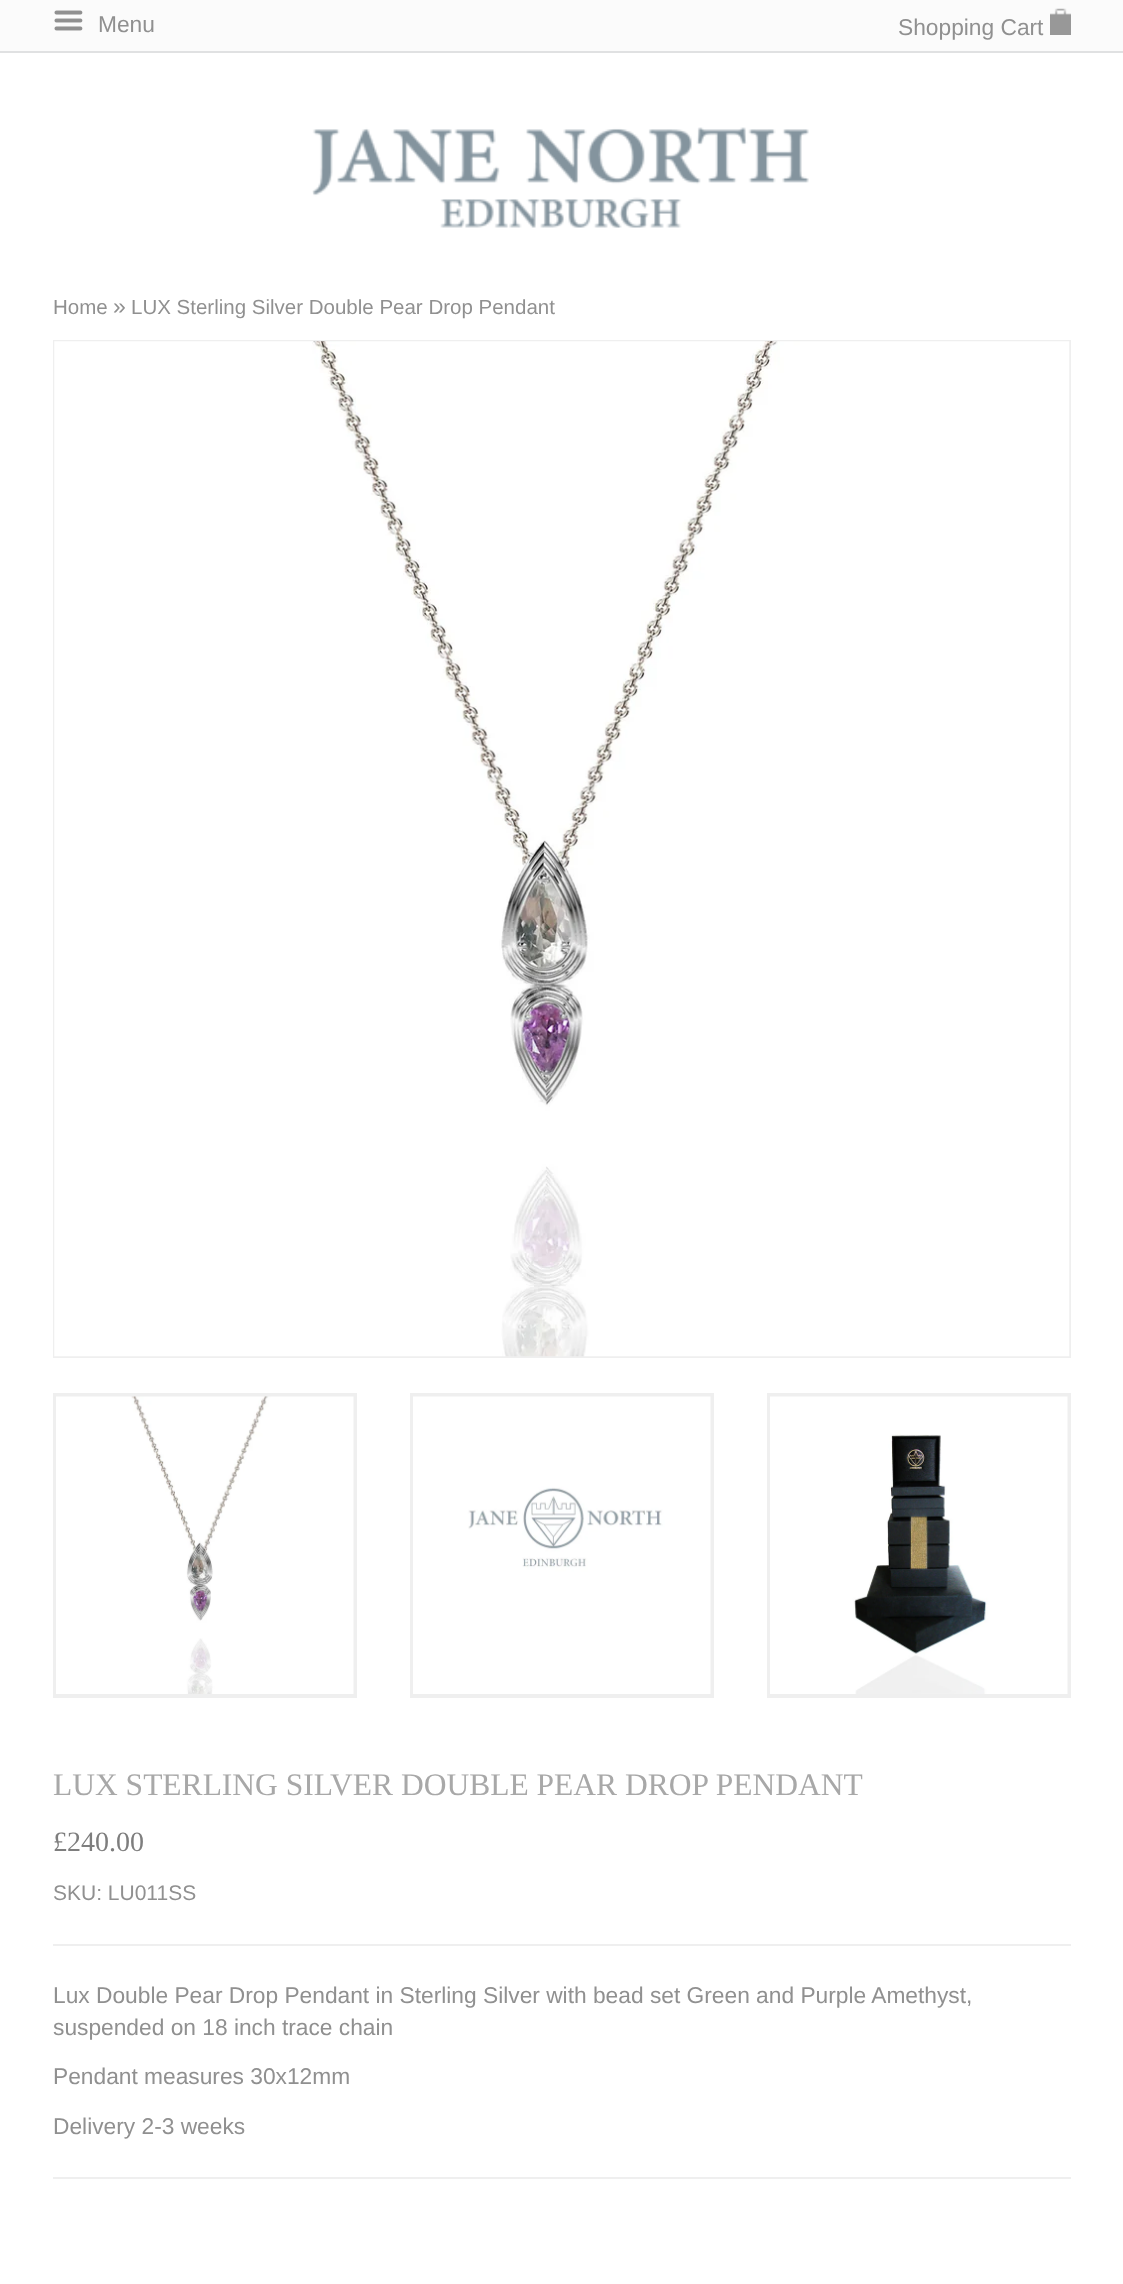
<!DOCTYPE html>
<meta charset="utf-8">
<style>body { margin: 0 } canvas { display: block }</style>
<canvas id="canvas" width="1123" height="2284"></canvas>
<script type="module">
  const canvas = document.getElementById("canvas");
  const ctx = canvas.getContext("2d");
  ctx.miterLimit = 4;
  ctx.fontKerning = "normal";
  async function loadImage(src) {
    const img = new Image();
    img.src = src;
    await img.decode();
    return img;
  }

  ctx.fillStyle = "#ffffff";
  ctx.fillRect(0, 0, 1123, 2284);
  ctx.fillStyle = "#fbfbfb";
  ctx.fillRect(0, 0, 1123, 51);
  ctx.fillStyle = "#e0e1e2";
  ctx.fillRect(0, 51, 1123, 2);
  ctx.drawImage(await loadImage("img1.png"), 54, 10, 29, 21);
  ctx.font = "22.75px Liberation Sans";
  ctx.fillStyle = "#909090";
  ctx.fillText("Menu", 98, 32);
  ctx.fillText("Shopping Cart", 898, 35);
  ctx.drawImage(await loadImage("img2.png"), 1050, 8, 21, 27);
  ctx.drawImage(await loadImage("img3.png"), 312, 127, 497, 101);
  ctx.font = "20.5px Liberation Sans";
  ctx.fillText("Home", 53, 314);
  ctx.font = "23px Liberation Sans";
  ctx.fillText("»", 113, 314);
  ctx.font = "20.5px Liberation Sans";
  ctx.fillText("LUX Sterling Silver Double Pear Drop Pendant", 131, 314);
  ctx.strokeStyle = "#efefef";
  ctx.lineWidth = 2;
  ctx.strokeRect(54, 341, 1016, 1016);
  ctx.drawImage(await loadImage("img4.png"), 54, 341, 1016, 1016);
  ctx.strokeRect(54, 1394, 302, 303);
  ctx.strokeRect(55, 1396, 299, 299);
  ctx.drawImage(await loadImage("img5.png"), 56, 1396, 298, 298);
  ctx.strokeRect(411, 1394, 302, 303);
  ctx.strokeRect(412, 1396, 299, 299);
  ctx.drawImage(await loadImage("img6.png"), 413, 1396, 298, 298);
  ctx.strokeRect(768, 1394, 302, 303);
  ctx.strokeRect(769, 1396, 299, 299);
  ctx.drawImage(await loadImage("img7.png"), 770, 1396, 298, 298);
  ctx.font = "31.5px Liberation Serif";
  ctx.fillStyle = "#a8a8a8";
  ctx.fillText("LUX STERLING SILVER DOUBLE PEAR DROP PENDANT", 53, 1795);
  ctx.font = "28px Liberation Serif";
  ctx.fillStyle = "#7e7e7e";
  ctx.fillText("£240.00", 53, 1851);
  ctx.font = "21px Liberation Sans";
  ctx.fillStyle = "#909090";
  ctx.fillText("SKU: LU011SS", 53, 1900);
  ctx.fillStyle = "#efefef";
  ctx.fillRect(53, 1944, 1018, 2);
  ctx.font = "22.75px Liberation Sans";
  ctx.fillStyle = "#909090";
  ctx.fillText("Lux Double Pear Drop Pendant in Sterling Silver with bead set Green and Purple Amethyst,", 53, 2003);
  ctx.fillText("suspended on 18 inch trace chain", 53, 2035);
  ctx.fillText("Pendant measures 30x12mm", 53, 2084);
  ctx.fillText("Delivery 2-3 weeks", 53, 2134);
  ctx.fillStyle = "#efefef";
  ctx.fillRect(53, 2177, 1018, 2);
</script>
